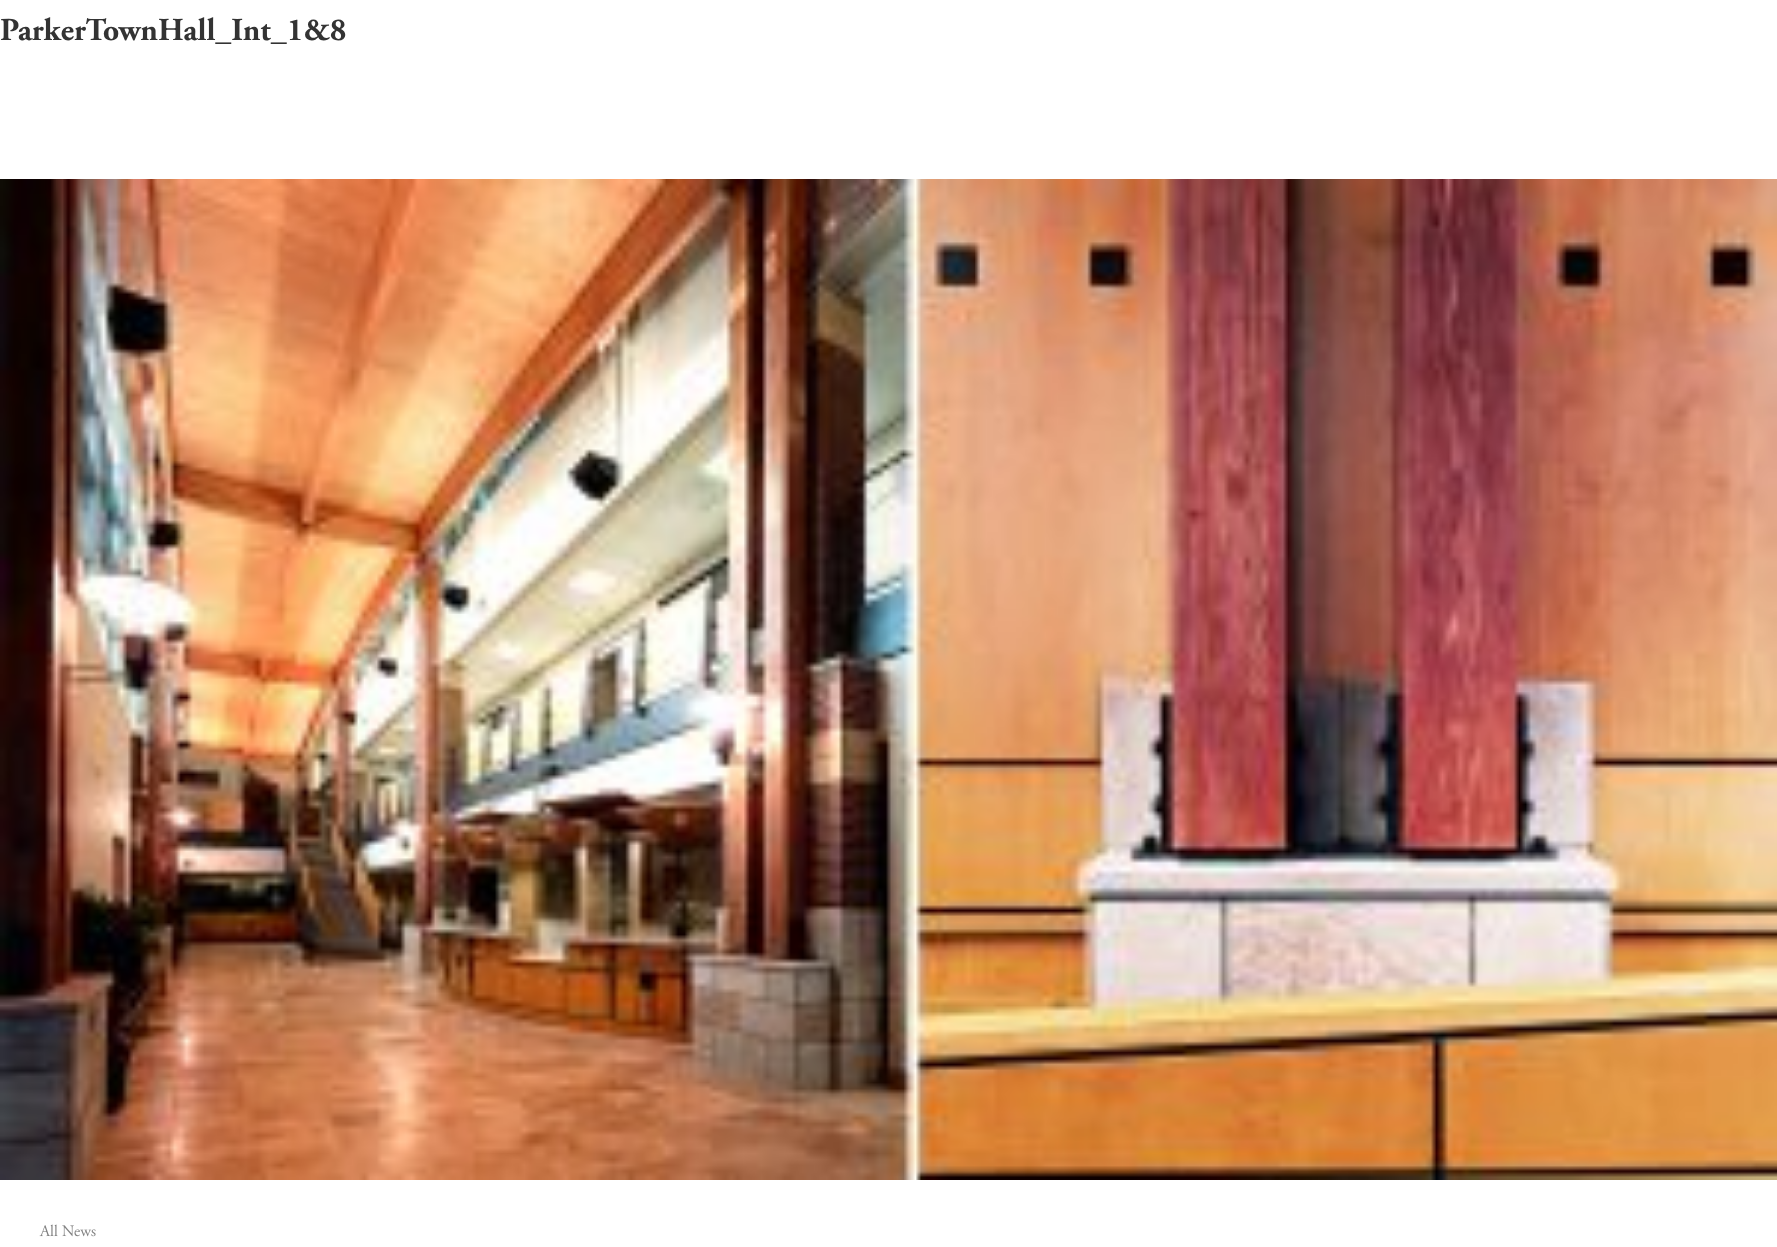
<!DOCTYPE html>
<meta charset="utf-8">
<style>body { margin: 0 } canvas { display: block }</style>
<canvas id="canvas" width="1777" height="1247"></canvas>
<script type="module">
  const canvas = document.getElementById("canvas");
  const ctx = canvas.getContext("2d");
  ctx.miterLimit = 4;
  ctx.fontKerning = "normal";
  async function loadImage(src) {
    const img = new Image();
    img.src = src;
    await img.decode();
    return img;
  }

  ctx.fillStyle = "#ffffff";
  ctx.fillRect(0, 0, 1777, 1247);
  ctx.font = "bold 32px Adobe Garamond";
  ctx.fillStyle = "#333333";
  ctx.fillText("ParkerTownHall_Int_1&8", 0, 40);
  ctx.drawImage(await loadImage("img1.png"), 0, 179, 1777, 1001);
  ctx.drawImage(await loadImage("img2.png"), 39, 1224, 57, 13);
</script>
